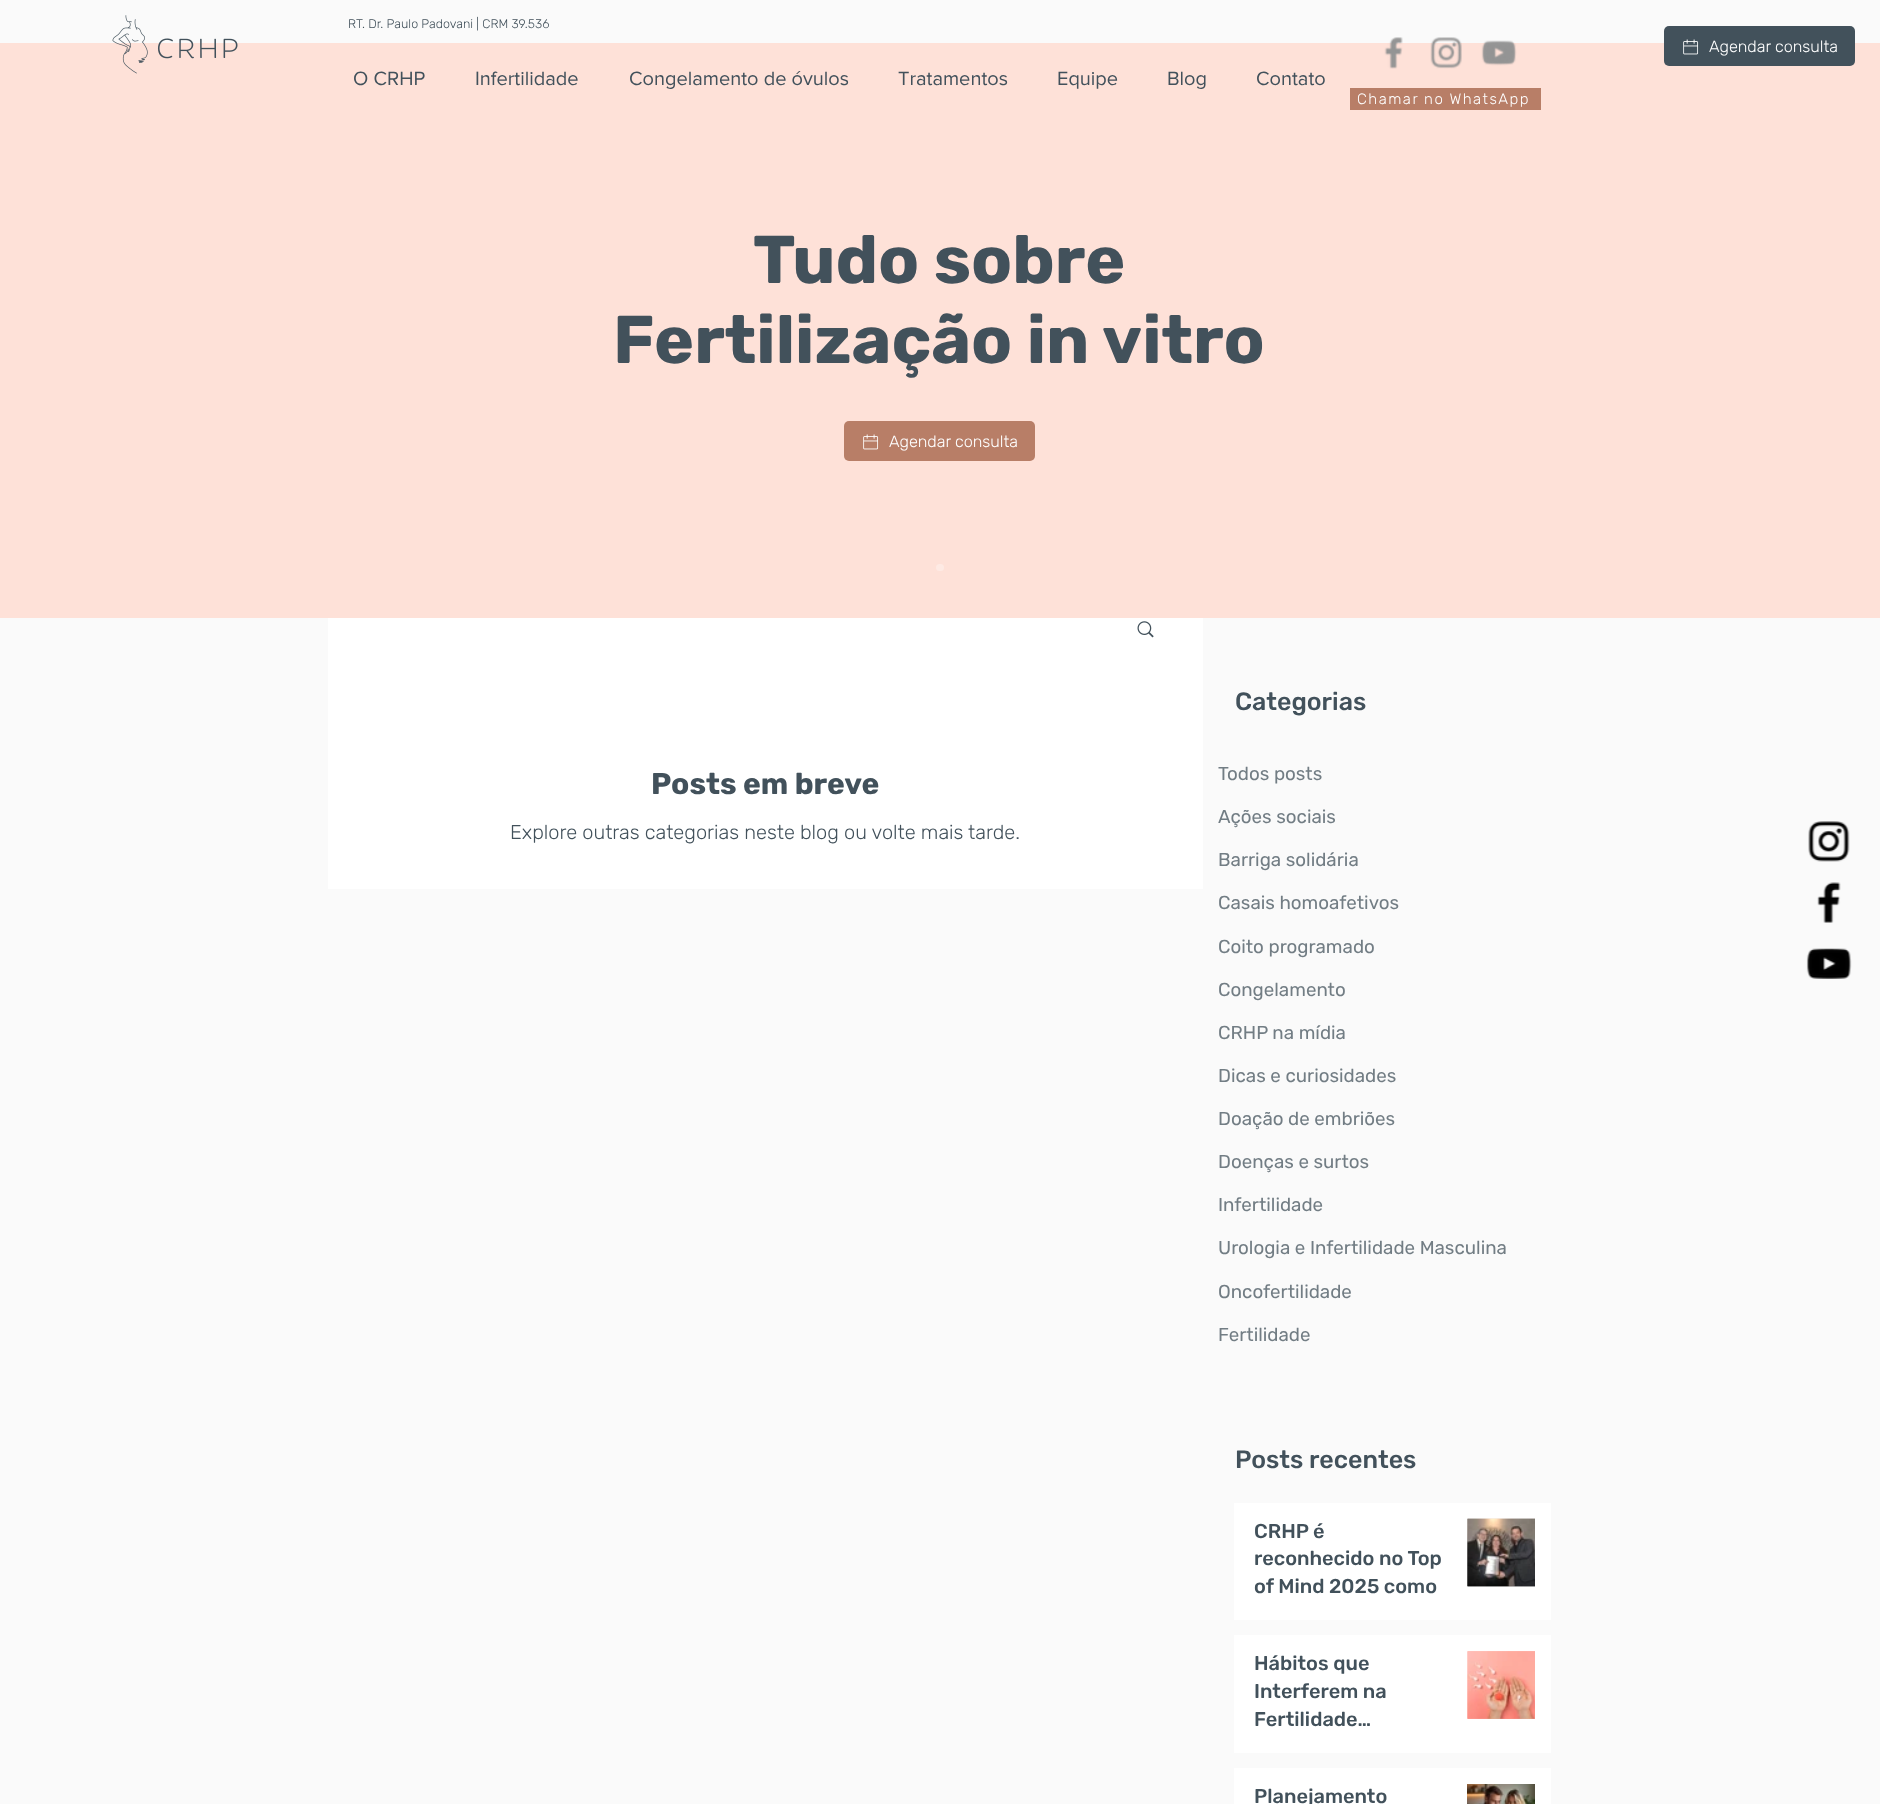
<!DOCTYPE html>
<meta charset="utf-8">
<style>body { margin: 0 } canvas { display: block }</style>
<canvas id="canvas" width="1880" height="1804"></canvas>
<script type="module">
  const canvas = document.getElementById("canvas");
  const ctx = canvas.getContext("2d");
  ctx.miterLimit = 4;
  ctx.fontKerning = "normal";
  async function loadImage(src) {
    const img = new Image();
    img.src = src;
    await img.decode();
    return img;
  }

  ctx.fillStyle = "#fafafa";
  ctx.fillRect(0, 0, 1880, 1804);
  ctx.fillStyle = "#fee1d8";
  ctx.fillRect(0, 43, 1880, 575);
  ctx.drawImage(await loadImage("img1.png"), 112, 15, 126, 59);
  ctx.font = "300 12.5px Rubik";
  ctx.fillStyle = "#42515b";
  ctx.fillText("RT. Dr. Paulo Padovani | CRM 39.536", 348, 28);
  ctx.drawImage(await loadImage("img2.png"), 1384, 37, 19, 32);
  ctx.drawImage(await loadImage("img3.png"), 1430, 37, 32, 32);
  ctx.drawImage(await loadImage("img4.png"), 1481, 40, 36, 26);
  ctx.font = "20px 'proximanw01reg'";
  ctx.fillText("O CRHP", 353, 85);
  ctx.fillText("Infertilidade", 475, 85);
  ctx.fillText("Congelamento de óvulos", 629, 85);
  ctx.fillText("Tratamentos", 898, 85);
  ctx.fillText("Equipe", 1057, 85);
  ctx.fillText("Blog", 1167, 85);
  ctx.fillText("Contato", 1256, 85);
  ctx.fillStyle = "#b87e67";
  ctx.fillRect(1350, 88, 191, 22);
  ctx.letterSpacing = "1.5px";
  ctx.font = "300 15px Rubik";
  ctx.fillStyle = "#ffffff";
  ctx.fillText("Chamar no WhatsApp", 1357, 104);
  ctx.fillStyle = "#42515b";
  ctx.beginPath();
  ctx.roundRect(1664, 26, 191, 40, 5);
  ctx.fill();
  ctx.drawImage(await loadImage("img5.png"), 1683, 39, 16, 16);
  ctx.letterSpacing = "0px";
  ctx.font = "300 16.25px Rubik";
  ctx.fillStyle = "#ffffff";
  ctx.fillText("Agendar consulta", 1709, 52);
  ctx.font = "bold 67.5px Rubik";
  ctx.fillStyle = "#42515b";
  ctx.fillText("Tudo sobre", 753, 283);
  ctx.fillText("Fertilização in vitro", 613, 363);
  ctx.fillStyle = "#b87e67";
  ctx.beginPath();
  ctx.roundRect(844, 421, 191, 40, 5);
  ctx.fill();
  ctx.drawImage(await loadImage("img6.png"), 863, 434, 16, 16);
  ctx.font = "300 16.25px Rubik";
  ctx.fillStyle = "#ffffff";
  ctx.fillText("Agendar consulta", 889, 447);
  ctx.fillStyle = "#feeae4";
  ctx.beginPath();
  ctx.roundRect(936, 564, 8, 7, 3.5);
  ctx.fill();
  ctx.font = "500 25px Rubik";
  ctx.fillStyle = "#42515b";
  ctx.fillText("Categorias", 1235, 710);
  ctx.fillStyle = "#ffffff";
  ctx.fillRect(328, 618, 875, 271);
  ctx.drawImage(await loadImage("img7.png"), 1137, 621, 17, 17);
  ctx.font = "bold 30px Rubik";
  ctx.fillStyle = "#42515b";
  ctx.fillText("Posts em breve", 651, 794);
  ctx.font = "300 20px Rubik";
  ctx.fillText("Explore outras categorias neste blog ou volte mais tarde.", 510, 839);
  ctx.font = "18.75px Rubik";
  ctx.fillStyle = "#727d84";
  ctx.fillText("Todos posts", 1218, 780);
  ctx.fillText("Ações sociais", 1218, 823);
  ctx.fillText("Barriga solidária", 1218, 866);
  ctx.fillText("Casais homoafetivos", 1218, 909);
  ctx.fillText("Coito programado", 1218, 953);
  ctx.fillText("Congelamento", 1218, 996);
  ctx.fillText("CRHP na mídia", 1218, 1039);
  ctx.fillText("Dicas e curiosidades", 1218, 1082);
  ctx.fillText("Doação de embriões", 1218, 1125);
  ctx.fillText("Doenças e surtos", 1218, 1168);
  ctx.fillText("Infertilidade", 1218, 1211);
  ctx.fillText("Urologia e Infertilidade Masculina", 1218, 1254);
  ctx.fillText("Oncofertilidade", 1218, 1298);
  ctx.fillText("Fertilidade", 1218, 1341);
  ctx.font = "500 25px Rubik";
  ctx.fillStyle = "#42515b";
  ctx.fillText("Posts recentes", 1235, 1468);
  ctx.fillStyle = "#ffffff";
  ctx.fillRect(1234, 1503, 317, 117);
  ctx.font = "500 20px Rubik";
  ctx.fillStyle = "#42515b";
  ctx.fillText("CRHP é", 1254, 1538);
  ctx.fillText("reconhecido no Top", 1254, 1565);
  ctx.fillText("of Mind 2025 como", 1254, 1593);
  ctx.drawImage(await loadImage("img8.png"), 1467, 1518, 68, 69);
  ctx.drawImage(await loadImage("img9.png"), 1467, 1518, 68, 69);
  ctx.fillStyle = "#ffffff";
  ctx.fillRect(1234, 1635, 317, 118);
  ctx.fillStyle = "#42515b";
  ctx.fillText("Hábitos que", 1254, 1670);
  ctx.fillText("Interferem na", 1254, 1698);
  ctx.fillText("Fertilidade…", 1254, 1726);
  ctx.drawImage(await loadImage("img10.png"), 1467, 1651, 68, 68);
  ctx.drawImage(await loadImage("img11.png"), 1467, 1651, 68, 68);
  ctx.fillStyle = "#ffffff";
  ctx.fillRect(1234, 1768, 317, 36);
  ctx.fillStyle = "#42515b";
  ctx.fillText("Planejamento", 1254, 1803);
  ctx.drawImage(await loadImage("img12.png"), 1467, 1784, 68, 20);
  ctx.drawImage(await loadImage("img13.png"), 1808, 821, 42, 41);
  ctx.drawImage(await loadImage("img14.png"), 1817, 882, 24, 41);
  ctx.drawImage(await loadImage("img15.png"), 1806, 948, 46, 31);
</script>
